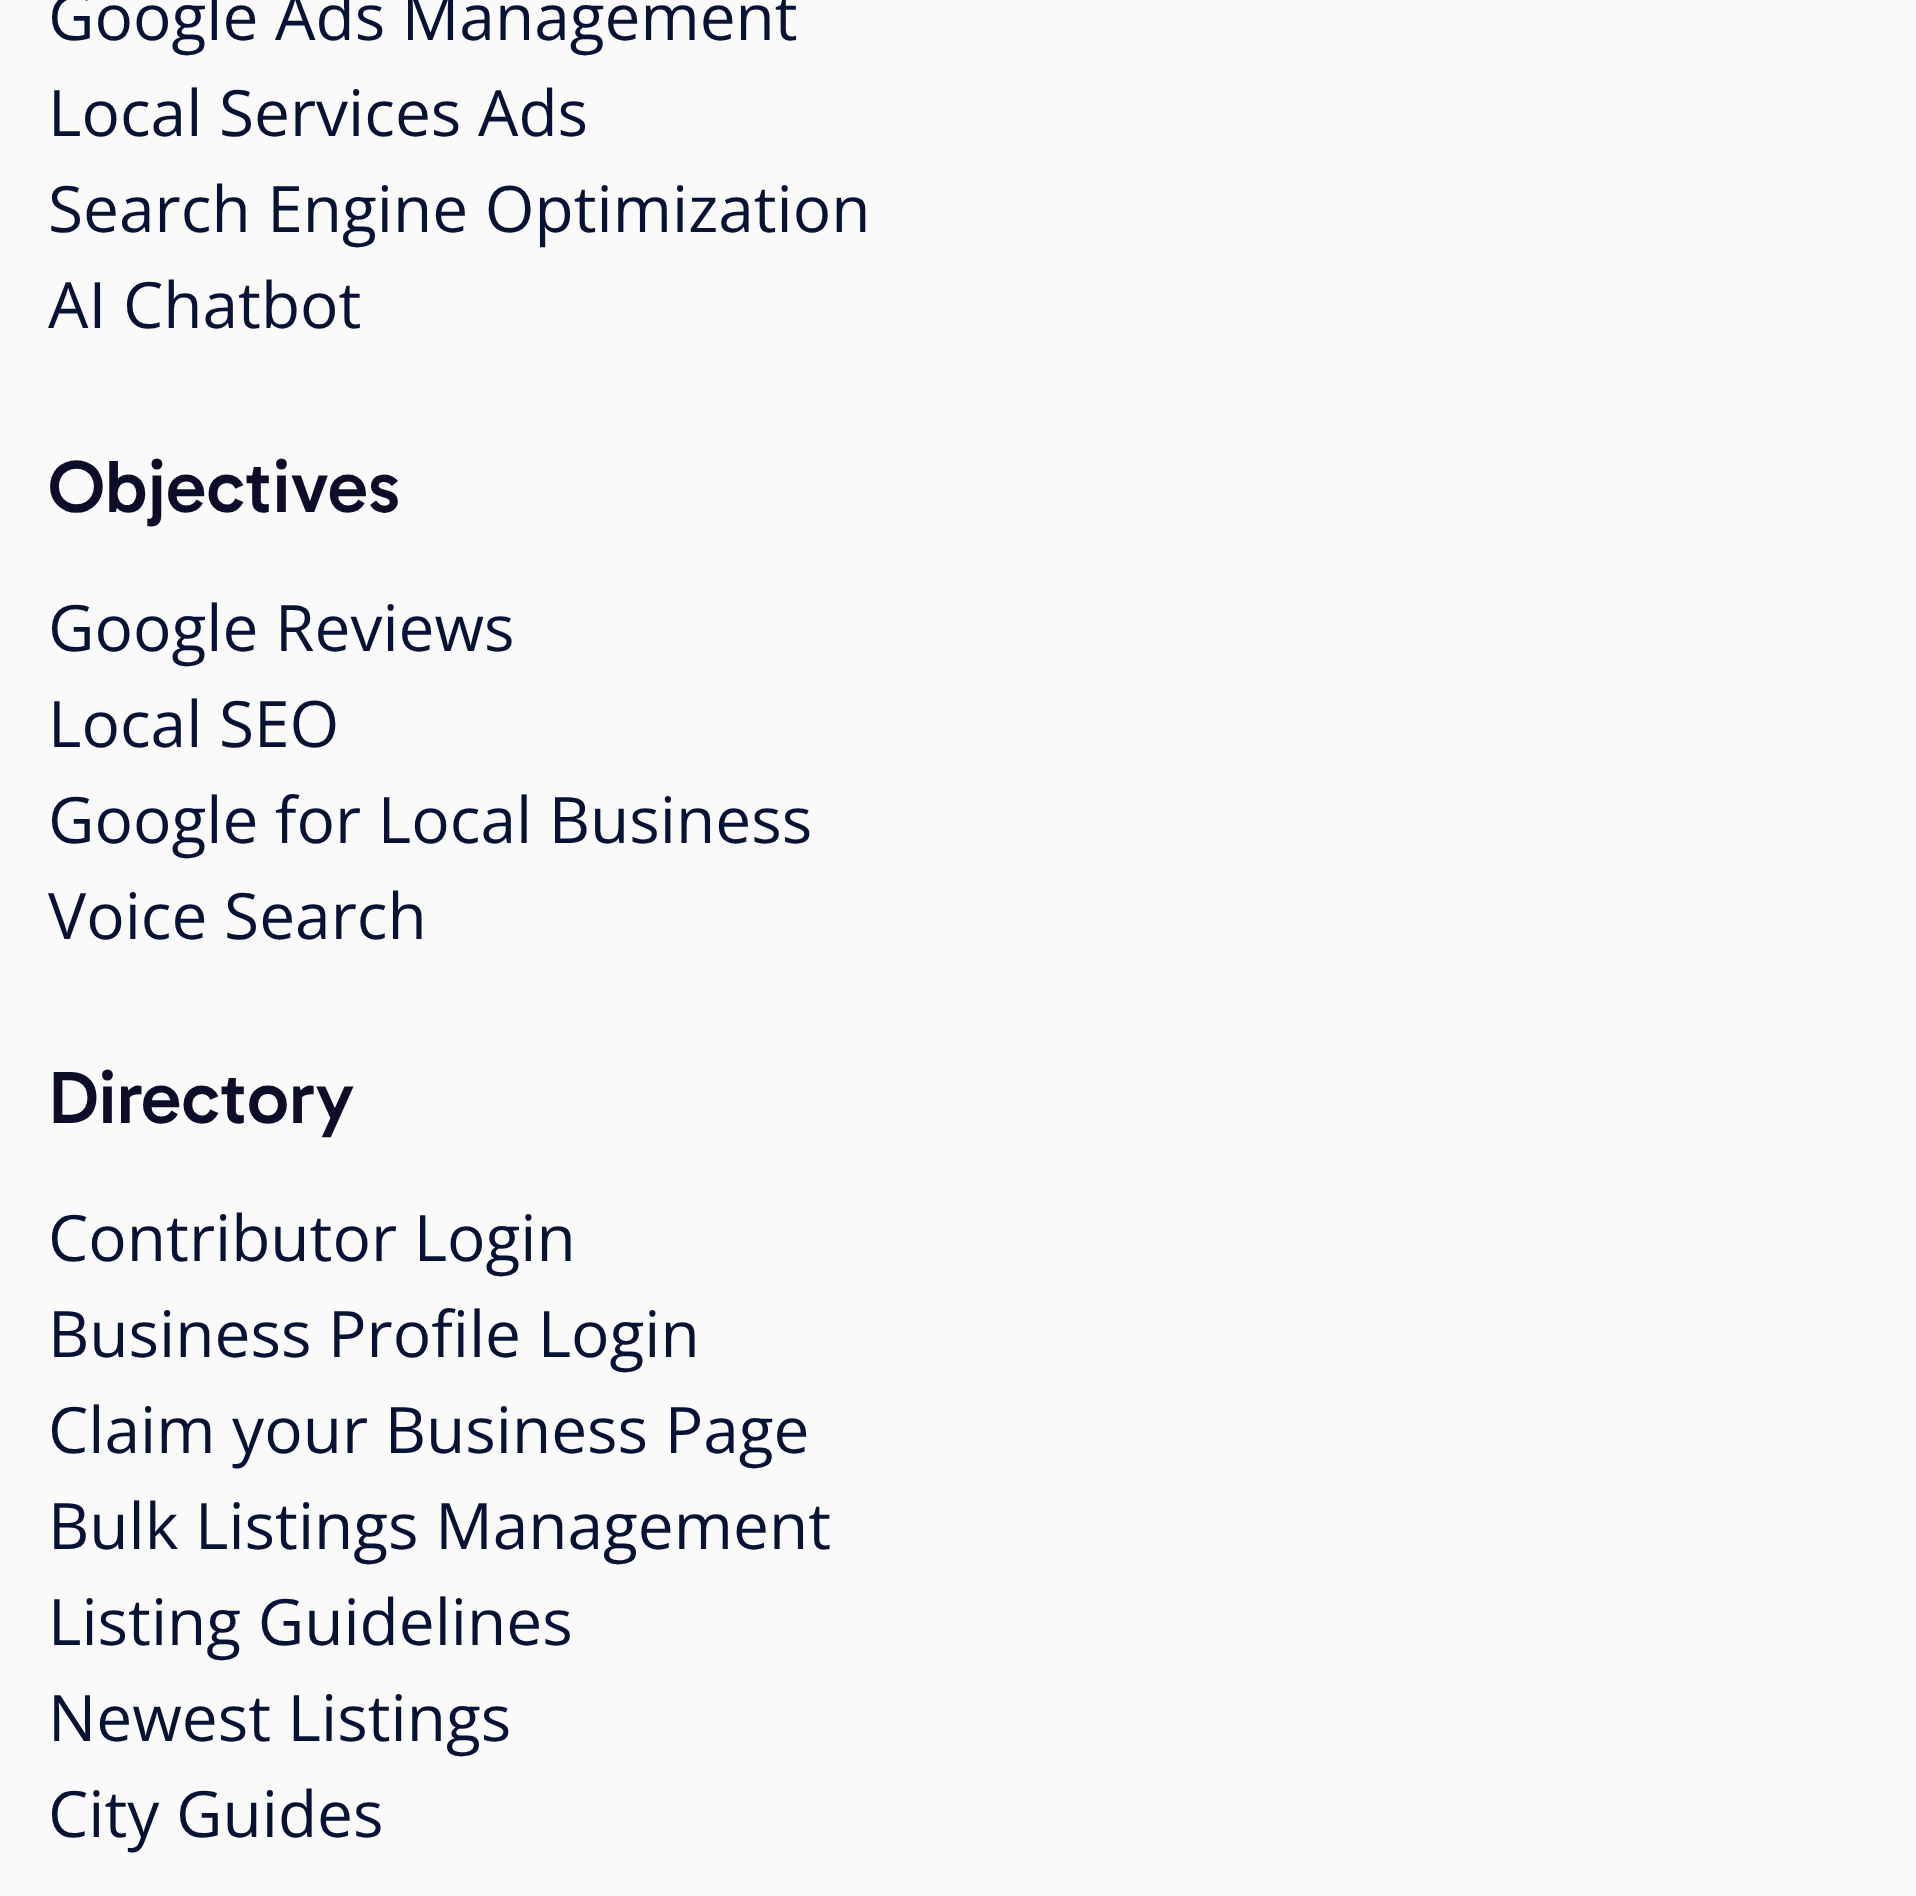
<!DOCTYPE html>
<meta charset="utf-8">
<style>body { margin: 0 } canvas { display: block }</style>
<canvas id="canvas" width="1916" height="1896"></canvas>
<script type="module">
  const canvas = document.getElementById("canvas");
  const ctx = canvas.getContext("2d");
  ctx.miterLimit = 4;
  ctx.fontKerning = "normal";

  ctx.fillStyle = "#fafafa";
  ctx.fillRect(0, 0, 1916, 1896);
  ctx.font = "64px Open Sans";
  ctx.fillStyle = "#081235";
  ctx.fillText("Google Ads Management", 48, 40);
  ctx.fillText("Local Services Ads", 48, 136);
  ctx.fillText("Search Engine Optimization", 48, 232);
  ctx.fillText("AI Chatbot", 48, 328);
  ctx.font = "500 75px Gabarito";
  ctx.fillStyle = "#0d0d29";
  ctx.fillText("Objectives", 48, 512);
  ctx.font = "64px Open Sans";
  ctx.fillStyle = "#081235";
  ctx.fillText("Google Reviews", 48, 651);
  ctx.fillText("Local SEO", 48, 747);
  ctx.fillText("Google for Local Business", 48, 843);
  ctx.fillText("Voice Search", 48, 939);
  ctx.font = "500 75px Gabarito";
  ctx.fillStyle = "#0d0d29";
  ctx.fillText("Directory", 48, 1123);
  ctx.font = "64px Open Sans";
  ctx.fillStyle = "#081235";
  ctx.fillText("Contributor Login", 48, 1261);
  ctx.fillText("Business Profile Login", 48, 1357);
  ctx.fillText("Claim your Business Page", 48, 1453);
  ctx.fillText("Bulk Listings Management", 48, 1549);
  ctx.fillText("Listing Guidelines", 48, 1645);
  ctx.fillText("Newest Listings", 48, 1741);
  ctx.fillText("City Guides", 48, 1837);
</script>
